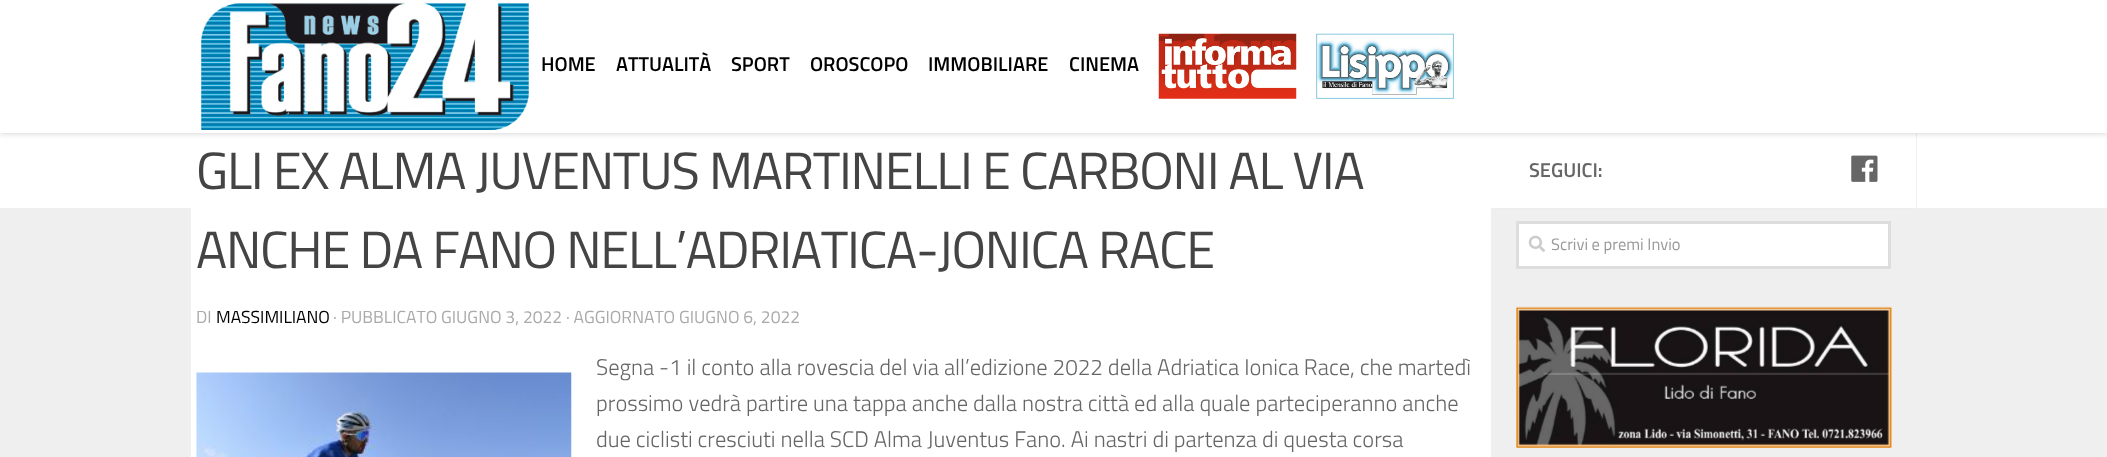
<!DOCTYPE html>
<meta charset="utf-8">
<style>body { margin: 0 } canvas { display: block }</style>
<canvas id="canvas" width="2107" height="457"></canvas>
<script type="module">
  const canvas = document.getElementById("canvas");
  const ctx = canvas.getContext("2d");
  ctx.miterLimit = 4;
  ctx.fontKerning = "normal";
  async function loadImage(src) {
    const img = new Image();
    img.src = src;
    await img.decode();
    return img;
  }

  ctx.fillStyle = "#efeff0";
  ctx.fillRect(0, 0, 2107, 457);
  ctx.fillStyle = "#ffffff";
  ctx.fillRect(0, 133, 2107, 75);
  ctx.fillStyle = "#f0f0f0";
  ctx.fillRect(1491, 133, 426, 75);
  ctx.fillStyle = "#ffffff";
  ctx.fillRect(1491, 133, 425, 75);
  ctx.fillStyle = "rgba(0, 0, 0, 0.2)";
  ctx.filter = "blur(3px)";
  ctx.beginPath();
  ctx.rect(0, 0, 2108, 133);
  ctx.fill();
  ctx.filter = "none";
  ctx.fillStyle = "#ffffff";
  ctx.fillRect(0, 0, 2107, 133);
  ctx.drawImage(await loadImage("img1.png"), 201, 2, 328, 128);
  ctx.font = "600 20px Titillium";
  ctx.fillStyle = "#000000";
  ctx.fillText("HOME", 541, 71);
  ctx.fillText("ATTUALITÀ", 616, 71);
  ctx.fillText("SPORT", 731, 71);
  ctx.fillText("OROSCOPO", 810, 71);
  ctx.fillText("IMMOBILIARE", 928, 71);
  ctx.fillText("CINEMA", 1069, 71);
  ctx.drawImage(await loadImage("img2.png"), 1158, 33, 139, 66);
  ctx.drawImage(await loadImage("img3.png"), 1316, 33, 138, 66);
  ctx.fillStyle = "#ffffff";
  ctx.fillRect(191, 208, 1300, 249);
  ctx.letterSpacing = "-1.25px";
  ctx.font = "52.4px Titillium";
  ctx.fillStyle = "#444444";
  ctx.fillText("GLI EX ALMA JUVENTUS MARTINELLI E CARBONI AL VIA", 196, 189);
  ctx.fillText("ANCHE DA FANO NELL’ADRIATICA-JONICA RACE", 196, 268);
  ctx.letterSpacing = "0px";
  ctx.font = "17.5px Titillium";
  ctx.fillStyle = "#aaaaaa";
  ctx.fillText("DI", 196, 323);
  ctx.fillStyle = "#000000";
  ctx.fillText("MASSIMILIANO", 216, 323);
  ctx.fillStyle = "#aaaaaa";
  ctx.fillText("· PUBBLICATO GIUGNO 3, 2022 · AGGIORNATO GIUGNO 6, 2022", 333, 323);
  ctx.font = "300 22.5px Titillium";
  ctx.fillStyle = "#666666";
  ctx.fillText("Segna -1 il conto alla rovescia del via all’edizione 2022 della Adriatica Ionica Race, che martedì", 596, 375);
  ctx.drawImage(await loadImage("img4.png"), 196, 372, 376, 85);
  ctx.fillText("prossimo vedrà partire una tappa anche dalla nostra città ed alla quale parteciperanno anche", 596, 411);
  ctx.fillText("due ciclisti cresciuti nella SCD Alma Juventus Fano. Ai nastri di partenza di questa corsa", 596, 447);
  ctx.fillStyle = "#eceded";
  ctx.fillRect(1491, 208, 425, 1);
  ctx.font = "600 20px Titillium";
  ctx.fillStyle = "#666666";
  ctx.fillText("SEGUICI:", 1529, 177);
  ctx.drawImage(await loadImage("img5.png"), 1851, 155, 27, 27);
  ctx.fillStyle = "#ffffff";
  ctx.beginPath();
  ctx.rect(1517.5, 222.5, 372, 45);
  ctx.fill();
  ctx.strokeStyle = "#dddddd";
  ctx.lineWidth = 3;
  ctx.stroke();
  ctx.drawImage(await loadImage("img6.png"), 1528, 235, 17, 17);
  ctx.font = "16.5px Titillium";
  ctx.fillStyle = "#999999";
  ctx.fillText("Scrivi e premi Invio", 1551, 250);
  ctx.drawImage(await loadImage("img7.png"), 1516, 306, 376, 142);
</script>
